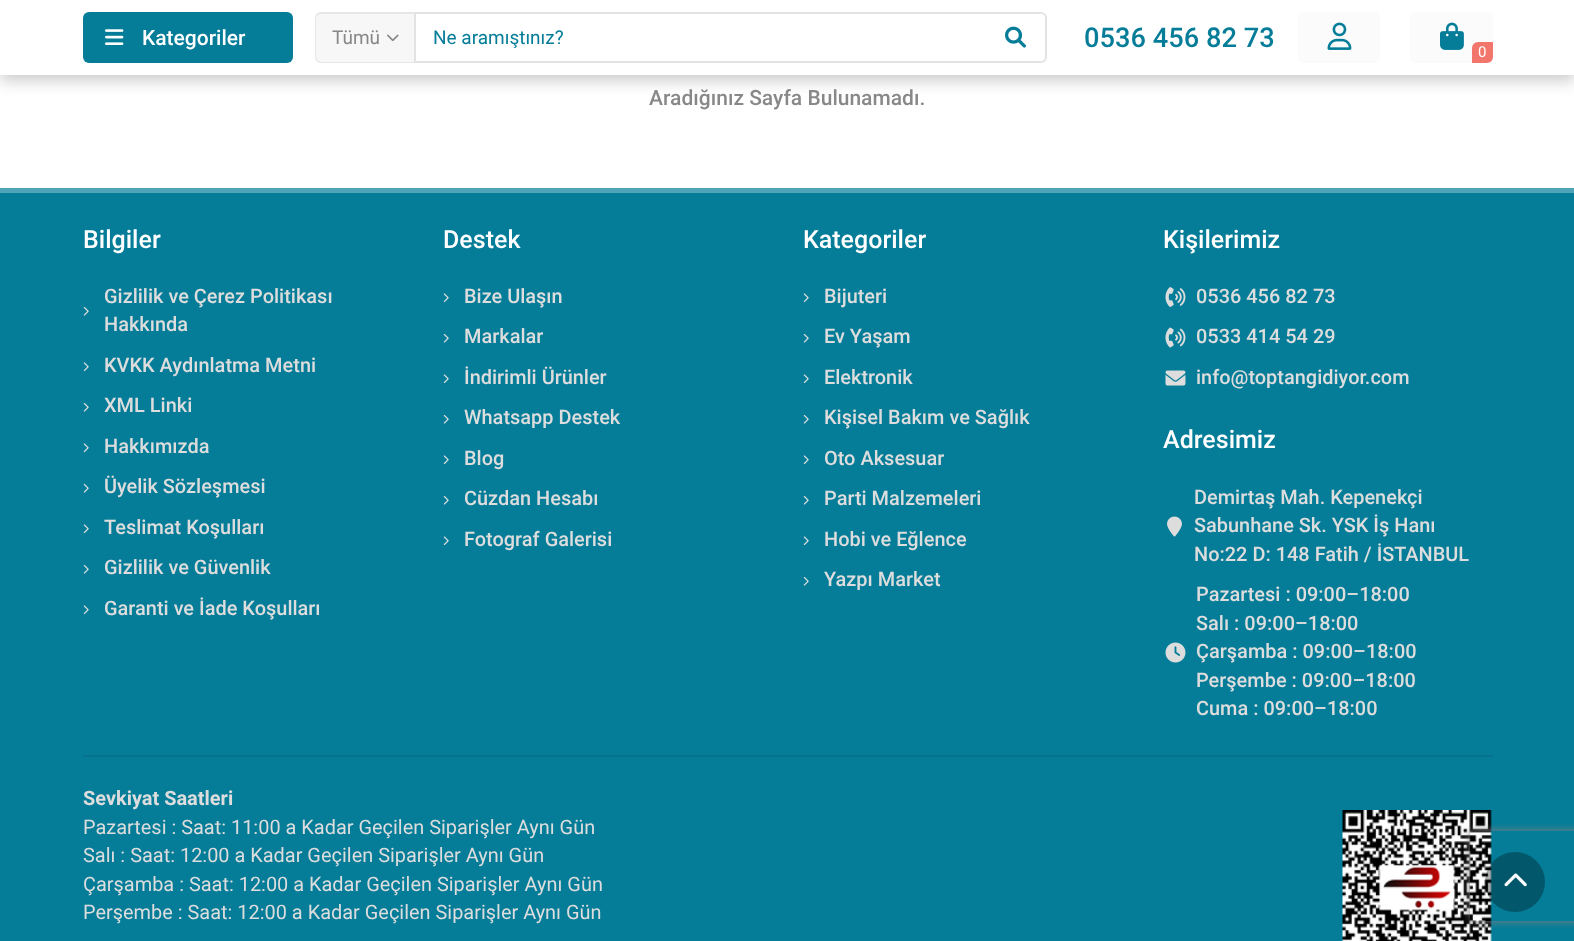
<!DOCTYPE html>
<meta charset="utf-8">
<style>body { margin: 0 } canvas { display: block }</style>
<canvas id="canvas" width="1574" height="941"></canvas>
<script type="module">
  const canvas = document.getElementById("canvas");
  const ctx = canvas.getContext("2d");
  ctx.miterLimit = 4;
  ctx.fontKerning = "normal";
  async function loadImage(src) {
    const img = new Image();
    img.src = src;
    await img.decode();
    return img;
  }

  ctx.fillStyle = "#ffffff";
  ctx.fillRect(0, 0, 1574, 941);
  ctx.fillStyle = "rgba(0, 0, 0, 0.2)";
  ctx.filter = "blur(7.5px)";
  ctx.beginPath();
  ctx.rect(0, 6, 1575, 75);
  ctx.fill();
  ctx.filter = "none";
  ctx.fillStyle = "#ffffff";
  ctx.fillRect(0, 0, 1574, 75);
  ctx.fillStyle = "#057d99";
  ctx.beginPath();
  ctx.roundRect(83, 12, 210, 51, 6);
  ctx.fill();
  ctx.drawImage(await loadImage("img1.png"), 105, 29, 19, 16);
  ctx.font = "500 21px Roboto";
  ctx.fillStyle = "#ffffff";
  ctx.fillText("Kategoriler", 142, 45);
  ctx.fillStyle = "#f7f7f7";
  ctx.beginPath();
  ctx.roundRect(315, 12, 99, 51, [6, 0, 0, 6]);
  ctx.fill();
  ctx.fillStyle = "#e6e6e6";
  ctx.beginPath();
  ctx.moveTo(321, 12);
  ctx.lineTo(414, 12);
  ctx.lineTo(414, 63);
  ctx.lineTo(321, 63);
  ctx.bezierCurveTo(318, 63, 315, 60, 315, 57);
  ctx.lineTo(315, 18);
  ctx.bezierCurveTo(315, 15, 318, 12, 321, 12);
  ctx.closePath();
  ctx.moveTo(321, 14);
  ctx.lineTo(414, 14);
  ctx.lineTo(414, 62);
  ctx.lineTo(321, 62);
  ctx.bezierCurveTo(319, 62, 316, 59, 316, 57);
  ctx.lineTo(316, 18);
  ctx.bezierCurveTo(316, 16, 319, 14, 321, 14);
  ctx.closePath();
  ctx.fill("evenodd");
  ctx.font = "19px Roboto";
  ctx.fillStyle = "#888888";
  ctx.fillText("Tümü", 332, 44);
  ctx.drawImage(await loadImage("img2.png"), 387, 34, 12, 8);
  ctx.beginPath();
  ctx.roundRect(415, 13, 631, 49, [0, 5, 5, 0]);
  ctx.strokeStyle = "#e3e3e3";
  ctx.lineWidth = 2;
  ctx.stroke();
  ctx.fillStyle = "#057d99";
  ctx.fillText("Ne aramıştınız?", 433, 44);
  ctx.drawImage(await loadImage("img3.png"), 1005, 26, 21, 22);
  ctx.font = "500 27.25px Roboto";
  ctx.fillText("0536 456 82 73", 1084, 47);
  ctx.fillStyle = "#fbfbfb";
  ctx.beginPath();
  ctx.roundRect(1298, 12, 82, 51, 5);
  ctx.fill();
  ctx.drawImage(await loadImage("img4.png"), 1327, 22, 25, 28);
  ctx.beginPath();
  ctx.roundRect(1410, 12, 83, 51, 5);
  ctx.fill();
  ctx.drawImage(await loadImage("img5.png"), 1440, 22, 24, 28);
  ctx.fillStyle = "#f2766b";
  ctx.beginPath();
  ctx.roundRect(1472, 42, 21, 21, [6, 0, 6, 0]);
  ctx.fill();
  ctx.font = "15px Roboto";
  ctx.fillStyle = "#ffffff";
  ctx.fillText("0", 1478, 57);
  ctx.font = "500 21px Roboto";
  ctx.fillStyle = "#888888";
  ctx.fillText("Aradığınız Sayfa Bulunamadı.", 649, 105);
  ctx.fillStyle = "#057d99";
  ctx.fillRect(0, 193, 1574, 748);
  ctx.fillStyle = "#50a4b8";
  ctx.fillRect(0, 188, 1574, 5);
  ctx.font = "500 25px Roboto";
  ctx.fillStyle = "#ffffff";
  ctx.fillText("Bilgiler", 83, 248);
  ctx.drawImage(await loadImage("img6.png"), 83, 306, 6, 10);
  ctx.font = "500 19.95px Roboto";
  ctx.fillStyle = "#dddddd";
  ctx.fillText("Gizlilik ve Çerez Politikası", 104, 303);
  ctx.fillText("Hakkında", 104, 331);
  ctx.drawImage(await loadImage("img7.png"), 83, 362, 6, 10);
  ctx.fillText("KVKK Aydınlatma Metni", 104, 372);
  ctx.drawImage(await loadImage("img6.png"), 83, 402, 6, 10);
  ctx.fillText("XML Linki", 104, 412);
  ctx.drawImage(await loadImage("img7.png"), 83, 443, 6, 10);
  ctx.fillText("Hakkımızda", 104, 453);
  ctx.drawImage(await loadImage("img6.png"), 83, 483, 6, 10);
  ctx.fillText("Üyelik Sözleşmesi", 104, 493);
  ctx.drawImage(await loadImage("img7.png"), 83, 524, 6, 10);
  ctx.fillText("Teslimat Koşulları", 104, 534);
  ctx.drawImage(await loadImage("img6.png"), 83, 564, 6, 10);
  ctx.fillText("Gizlilik ve Güvenlik", 104, 574);
  ctx.drawImage(await loadImage("img7.png"), 83, 605, 6, 10);
  ctx.fillText("Garanti ve İade Koşulları", 104, 615);
  ctx.font = "500 25px Roboto";
  ctx.fillStyle = "#ffffff";
  ctx.fillText("Destek", 443, 248);
  ctx.drawImage(await loadImage("img7.png"), 443, 293, 6, 10);
  ctx.font = "500 19.95px Roboto";
  ctx.fillStyle = "#dddddd";
  ctx.fillText("Bize Ulaşın", 464, 303);
  ctx.drawImage(await loadImage("img6.png"), 443, 333, 6, 10);
  ctx.fillText("Markalar", 464, 343);
  ctx.drawImage(await loadImage("img7.png"), 443, 374, 6, 10);
  ctx.fillText("İndirimli Ürünler", 464, 384);
  ctx.drawImage(await loadImage("img6.png"), 443, 414, 6, 10);
  ctx.fillText("Whatsapp Destek", 464, 424);
  ctx.drawImage(await loadImage("img7.png"), 443, 455, 6, 10);
  ctx.fillText("Blog", 464, 465);
  ctx.drawImage(await loadImage("img6.png"), 443, 495, 6, 10);
  ctx.fillText("Cüzdan Hesabı", 464, 505);
  ctx.drawImage(await loadImage("img7.png"), 443, 536, 6, 10);
  ctx.fillText("Fotograf Galerisi", 464, 546);
  ctx.font = "500 25px Roboto";
  ctx.fillStyle = "#ffffff";
  ctx.fillText("Kategoriler", 803, 248);
  ctx.drawImage(await loadImage("img7.png"), 803, 293, 6, 10);
  ctx.font = "500 19.95px Roboto";
  ctx.fillStyle = "#dddddd";
  ctx.fillText("Bijuteri", 824, 303);
  ctx.drawImage(await loadImage("img6.png"), 803, 333, 6, 10);
  ctx.fillText("Ev Yaşam", 824, 343);
  ctx.drawImage(await loadImage("img7.png"), 803, 374, 6, 10);
  ctx.fillText("Elektronik", 824, 384);
  ctx.drawImage(await loadImage("img6.png"), 803, 414, 6, 10);
  ctx.fillText("Kişisel Bakım ve Sağlık", 824, 424);
  ctx.drawImage(await loadImage("img7.png"), 803, 455, 6, 10);
  ctx.fillText("Oto Aksesuar", 824, 465);
  ctx.drawImage(await loadImage("img6.png"), 803, 495, 6, 10);
  ctx.fillText("Parti Malzemeleri", 824, 505);
  ctx.drawImage(await loadImage("img7.png"), 803, 536, 6, 10);
  ctx.fillText("Hobi ve Eğlence", 824, 546);
  ctx.drawImage(await loadImage("img6.png"), 803, 576, 6, 10);
  ctx.fillText("Yazpı Market", 824, 586);
  ctx.font = "500 25px Roboto";
  ctx.fillStyle = "#ffffff";
  ctx.fillText("Kişilerimiz", 1163, 248);
  ctx.drawImage(await loadImage("img8.png"), 1165, 287, 21, 20);
  ctx.font = "500 19.95px Roboto";
  ctx.fillStyle = "#dddddd";
  ctx.fillText("0536 456 82 73", 1196, 303);
  ctx.drawImage(await loadImage("img9.png"), 1165, 327, 21, 21);
  ctx.fillText("0533 414 54 29", 1196, 343);
  ctx.drawImage(await loadImage("img10.png"), 1165, 370, 21, 16);
  ctx.fillText("info@toptangidiyor.com", 1196, 384);
  ctx.font = "500 25px Roboto";
  ctx.fillStyle = "#ffffff";
  ctx.fillText("Adresimiz", 1163, 448);
  ctx.drawImage(await loadImage("img11.png"), 1167, 516, 15, 21);
  ctx.font = "500 19.95px Roboto";
  ctx.fillStyle = "#dddddd";
  ctx.fillText("Demirtaş Mah. Kepenekçi", 1194, 504);
  ctx.fillText("Sabunhane Sk. YSK İş Hanı", 1194, 532);
  ctx.fillText("No:22 D: 148 Fatih / İSTANBUL", 1194, 561);
  ctx.fillText("Pazartesi : 09:00–18:00", 1196, 601);
  ctx.fillText("Salı : 09:00–18:00", 1196, 630);
  ctx.drawImage(await loadImage("img12.png"), 1165, 642, 21, 21);
  ctx.fillText("Çarşamba : 09:00–18:00", 1196, 658);
  ctx.fillText("Perşembe : 09:00–18:00", 1196, 687);
  ctx.fillText("Cuma : 09:00–18:00", 1196, 715);
  ctx.fillStyle = "#05738d";
  ctx.fillRect(83, 755, 1410, 2);
  ctx.font = "bold 19.95px Roboto";
  ctx.fillStyle = "#dddddd";
  ctx.fillText("Sevkiyat Saatleri", 83, 805);
  ctx.font = "19.95px Roboto";
  ctx.fillText("Pazartesi : Saat: 11:00 a Kadar Geçilen Siparişler Aynı Gün", 83, 834);
  ctx.fillText("Salı : Saat: 12:00 a Kadar Geçilen Siparişler Aynı Gün", 83, 862);
  ctx.fillText("Çarşamba : Saat: 12:00 a Kadar Geçilen Siparişler Aynı Gün", 83, 891);
  ctx.fillText("Perşembe : Saat: 12:00 a Kadar Geçilen Siparişler Aynı Gün", 83, 919);
  ctx.drawImage(await loadImage("img13.png"), 1342, 810, 150, 131);
  ctx.save();
  ctx.beginPath();
  ctx.moveTo(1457, 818);
  ctx.lineTo(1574, 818);
  ctx.lineTo(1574, 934);
  ctx.lineTo(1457, 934);
  ctx.closePath();
  ctx.moveTo(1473, 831);
  ctx.lineTo(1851, 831);
  ctx.bezierCurveTo(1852.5, 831, 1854, 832.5, 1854, 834);
  ctx.lineTo(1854, 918);
  ctx.bezierCurveTo(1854, 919.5, 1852.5, 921, 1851, 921);
  ctx.lineTo(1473, 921);
  ctx.bezierCurveTo(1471.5, 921, 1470, 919.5, 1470, 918);
  ctx.lineTo(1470, 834);
  ctx.bezierCurveTo(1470, 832.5, 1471.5, 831, 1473, 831);
  ctx.closePath();
  ctx.clip("evenodd");
  ctx.fillStyle = "#808080";
  ctx.filter = "blur(4px)";
  ctx.beginPath();
  ctx.roundRect(1470, 831, 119, 90, 3);
  ctx.fill();
  ctx.filter = "none";
  ctx.restore();
  ctx.fillStyle = "rgba(0, 0, 0, 0.3)";
  ctx.beginPath();
  ctx.arc(1515, 882, 30, 0, Math.PI * 2);
  ctx.fill();
  ctx.drawImage(await loadImage("img14.png"), 1504, 873, 23, 14);
</script>
